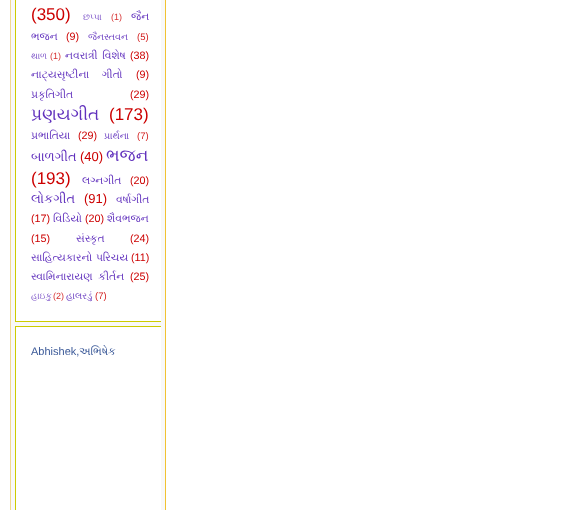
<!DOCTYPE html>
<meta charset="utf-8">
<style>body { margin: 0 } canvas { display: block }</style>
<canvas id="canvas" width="588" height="510"></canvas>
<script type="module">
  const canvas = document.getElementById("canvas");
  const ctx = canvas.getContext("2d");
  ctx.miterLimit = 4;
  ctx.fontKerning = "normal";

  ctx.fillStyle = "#ffffff";
  ctx.fillRect(0, 0, 588, 510);
  ctx.fillStyle = "#f8f8f8";
  ctx.fillRect(11, 0, 154, 510);
  ctx.strokeStyle = "#f1d991";
  ctx.strokeRect(10.5, -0.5, 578, 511);
  ctx.fillStyle = "#ffffff";
  ctx.fillRect(16, 0, 145, 321);
  ctx.save();
  ctx.beginPath();
  ctx.rect(11, 0, 150, 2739);
  ctx.clip();
  ctx.strokeStyle = "#cccc00";
  ctx.strokeRect(15.5, -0.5, 149, 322);
  ctx.restore();
  ctx.font = "17px Liberation Sans";
  ctx.fillStyle = "#cc0000";
  ctx.fillText("(350)", 31, 20);
  ctx.font = "9px FreeSerif";
  ctx.fillStyle = "#815aca";
  ctx.fillText("છપ્પા", 83, 20);
  ctx.font = "9px Liberation Sans";
  ctx.fillStyle = "#d63333";
  ctx.fillText("(1)", 111, 20);
  ctx.font = "10.75px FreeSerif";
  ctx.fillStyle = "#6131bd";
  ctx.fillText("જૈન", 131, 20);
  ctx.fillText("ભજન", 31, 40);
  ctx.font = "10.75px Liberation Sans";
  ctx.fillStyle = "#cc0000";
  ctx.fillText("(9)", 66, 40);
  ctx.font = "9.5px FreeSerif";
  ctx.fillStyle = "#7146c4";
  ctx.fillText("જૈનસ્તવન", 88, 40);
  ctx.font = "9.5px Liberation Sans";
  ctx.fillStyle = "#d11a1a";
  ctx.fillText("(5)", 137, 40);
  ctx.font = "9px FreeSerif";
  ctx.fillStyle = "#815aca";
  ctx.fillText("થાળ", 31, 59);
  ctx.font = "9px Liberation Sans";
  ctx.fillStyle = "#d63333";
  ctx.fillText("(1)", 50, 59);
  ctx.wordSpacing = "2px";
  ctx.font = "10.75px FreeSerif";
  ctx.fillStyle = "#6131bd";
  ctx.fillText("નવરાત્રી વિશેષ", 65, 59);
  ctx.wordSpacing = "0px";
  ctx.font = "10.75px Liberation Sans";
  ctx.fillStyle = "#cc0000";
  ctx.fillText("(38)", 130, 59);
  ctx.wordSpacing = "10px";
  ctx.font = "10.75px FreeSerif";
  ctx.fillStyle = "#6131bd";
  ctx.fillText("નાટ્યસૃષ્ટીના ગીતો", 31, 78);
  ctx.wordSpacing = "0px";
  ctx.font = "10.75px Liberation Sans";
  ctx.fillStyle = "#cc0000";
  ctx.fillText("(9)", 136, 78);
  ctx.font = "10.75px FreeSerif";
  ctx.fillStyle = "#6131bd";
  ctx.fillText("પ્રકૃતિગીત", 31, 98);
  ctx.font = "10.75px Liberation Sans";
  ctx.fillStyle = "#cc0000";
  ctx.fillText("(29)", 130, 98);
  ctx.font = "17px FreeSerif";
  ctx.fillStyle = "#6131bd";
  ctx.fillText("પ્રણયગીત", 31, 120);
  ctx.font = "17px Liberation Sans";
  ctx.fillStyle = "#cc0000";
  ctx.fillText("(173)", 109, 120);
  ctx.font = "10.75px FreeSerif";
  ctx.fillStyle = "#6131bd";
  ctx.fillText("પ્રભાતિયા", 31, 139);
  ctx.font = "10.75px Liberation Sans";
  ctx.fillStyle = "#cc0000";
  ctx.fillText("(29)", 78, 139);
  ctx.font = "9.5px FreeSerif";
  ctx.fillStyle = "#7146c4";
  ctx.fillText("પ્રાર્થના", 104, 139);
  ctx.font = "9.5px Liberation Sans";
  ctx.fillStyle = "#d11a1a";
  ctx.fillText("(7)", 137, 139);
  ctx.font = "13px FreeSerif";
  ctx.fillStyle = "#6131bd";
  ctx.fillText("બાળગીત", 31, 161);
  ctx.font = "13px Liberation Sans";
  ctx.fillStyle = "#cc0000";
  ctx.fillText("(40)", 80, 161);
  ctx.font = "17px FreeSerif";
  ctx.fillStyle = "#6131bd";
  ctx.fillText("ભજન", 106, 161);
  ctx.font = "17px Liberation Sans";
  ctx.fillStyle = "#cc0000";
  ctx.fillText("(193)", 31, 184);
  ctx.font = "10.75px FreeSerif";
  ctx.fillStyle = "#6131bd";
  ctx.fillText("લગ્નગીત", 82, 184);
  ctx.font = "10.75px Liberation Sans";
  ctx.fillStyle = "#cc0000";
  ctx.fillText("(20)", 130, 184);
  ctx.font = "13px FreeSerif";
  ctx.fillStyle = "#6131bd";
  ctx.fillText("લોકગીત", 31, 203);
  ctx.font = "13px Liberation Sans";
  ctx.fillStyle = "#cc0000";
  ctx.fillText("(91)", 84, 203);
  ctx.font = "10.75px FreeSerif";
  ctx.fillStyle = "#6131bd";
  ctx.fillText("વર્ષાગીત", 116, 203);
  ctx.font = "10.75px Liberation Sans";
  ctx.fillStyle = "#cc0000";
  ctx.fillText("(17)", 31, 222);
  ctx.font = "10.75px FreeSerif";
  ctx.fillStyle = "#6131bd";
  ctx.fillText("વિડિયો", 53, 222);
  ctx.font = "10.75px Liberation Sans";
  ctx.fillStyle = "#cc0000";
  ctx.fillText("(20)", 85, 222);
  ctx.font = "10.75px FreeSerif";
  ctx.fillStyle = "#6131bd";
  ctx.fillText("શૈવભજન", 107, 222);
  ctx.font = "10.75px Liberation Sans";
  ctx.fillStyle = "#cc0000";
  ctx.fillText("(15)", 31, 242);
  ctx.font = "10.75px FreeSerif";
  ctx.fillStyle = "#6131bd";
  ctx.fillText("સંસ્કૃત", 76, 242);
  ctx.font = "10.75px Liberation Sans";
  ctx.fillStyle = "#cc0000";
  ctx.fillText("(24)", 130, 242);
  ctx.wordSpacing = "1px";
  ctx.font = "10.75px FreeSerif";
  ctx.fillStyle = "#6131bd";
  ctx.fillText("સાહિત્યકારનો પરિચય", 31, 261);
  ctx.wordSpacing = "0px";
  ctx.font = "10.75px Liberation Sans";
  ctx.fillStyle = "#cc0000";
  ctx.fillText("(11)", 131, 261);
  ctx.wordSpacing = "3px";
  ctx.font = "10.75px FreeSerif";
  ctx.fillStyle = "#6131bd";
  ctx.fillText("સ્વામિનારાયણ કીર્તન", 31, 280);
  ctx.wordSpacing = "0px";
  ctx.font = "10.75px Liberation Sans";
  ctx.fillStyle = "#cc0000";
  ctx.fillText("(25)", 130, 280);
  ctx.font = "9px FreeSerif";
  ctx.fillStyle = "#815aca";
  ctx.fillText("હાઇકુ", 31, 299);
  ctx.font = "9px Liberation Sans";
  ctx.fillStyle = "#d63333";
  ctx.fillText("(2)", 53, 299);
  ctx.font = "9.5px FreeSerif";
  ctx.fillStyle = "#7146c4";
  ctx.fillText("હાલરડું", 66, 299);
  ctx.font = "9.5px Liberation Sans";
  ctx.fillStyle = "#d11a1a";
  ctx.fillText("(7)", 95, 299);
  ctx.fillStyle = "#ffffff";
  ctx.fillRect(16, 327, 145, 183);
  ctx.save();
  ctx.beginPath();
  ctx.rect(11, 0, 150, 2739);
  ctx.clip();
  ctx.strokeStyle = "#cccc00";
  ctx.strokeRect(15.5, 326.5, 149, 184);
  ctx.restore();
  ctx.font = "11px Liberation Sans";
  ctx.fillStyle = "#3b5998";
  ctx.fillText("Abhishek,", 31, 355);
  ctx.font = "11px FreeSerif";
  ctx.fillText("અભિષેક", 79, 355);
  ctx.strokeStyle = "#f1c232";
  ctx.strokeRect(165.5, -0.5, 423, 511);
</script>
